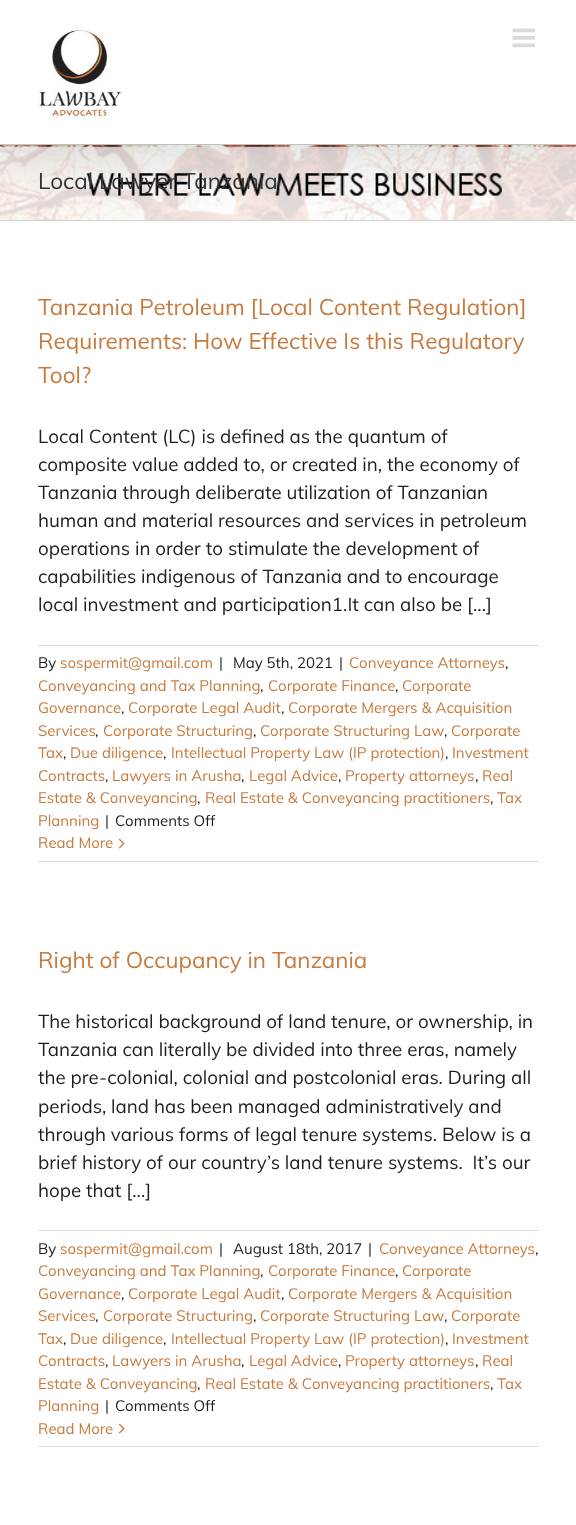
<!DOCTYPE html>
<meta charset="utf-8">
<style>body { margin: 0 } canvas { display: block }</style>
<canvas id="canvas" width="576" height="1525"></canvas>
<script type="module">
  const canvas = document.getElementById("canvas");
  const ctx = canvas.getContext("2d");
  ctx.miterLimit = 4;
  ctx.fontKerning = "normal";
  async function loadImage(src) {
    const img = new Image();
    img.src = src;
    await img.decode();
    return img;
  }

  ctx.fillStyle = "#ffffff";
  ctx.fillRect(0, 0, 576, 1525);
  ctx.drawImage(await loadImage("img3.png"), 0, 145, 576, 75);
  ctx.fillStyle = "#d2d3d4";
  ctx.fillRect(0, 144, 576, 1);
  ctx.fillRect(0, 220, 576, 1);
  ctx.fillStyle = "rgba(0, 0, 0, 0.14)";
  ctx.filter = "blur(31px)";
  ctx.beginPath();
  ctx.rect(3, 15, 571, 139);
  ctx.fill();
  ctx.filter = "none";
  ctx.fillStyle = "#ffffff";
  ctx.fillRect(0, 0, 576, 144);
  ctx.drawImage(await loadImage("img1.png"), 37, 30, 85, 89);
  ctx.drawImage(await loadImage("img2.png"), 512, 28, 23, 20);
  ctx.font = "22.5px Muli";
  ctx.fillStyle = "#333333";
  ctx.fillText("Local Lawyer Tanzania", 38, 189);
  ctx.fillStyle = "#c77a3e";
  ctx.fillText("Tanzania Petroleum [Local Content Regulation]", 38, 315);
  ctx.fillText("Requirements: How Effective Is this Regulatory", 38, 349);
  ctx.fillText("Tool?", 38, 383);
  ctx.font = "18.75px Muli";
  ctx.fillStyle = "#1e1e1e";
  ctx.fillText("Local Content (LC) is defined as the quantum of", 38, 443);
  ctx.fillText("composite value added to, or created in, the economy of", 38, 471);
  ctx.fillText("Tanzania through deliberate utilization of Tanzanian", 38, 499);
  ctx.fillText("human and material resources and services in petroleum", 38, 527);
  ctx.fillText("operations in order to stimulate the development of", 38, 555);
  ctx.fillText("capabilities indigenous of Tanzania and to encourage", 38, 583);
  ctx.fillText("local investment and participation1.It can also be [...]", 38, 611);
  ctx.fillStyle = "#e0dede";
  ctx.fillRect(38, 645, 501, 1);
  ctx.fillRect(38, 861, 501, 1);
  ctx.font = "15px Muli";
  ctx.fillStyle = "#1e1e1e";
  ctx.fillText("By", 38, 668);
  ctx.fillStyle = "#c77a3e";
  ctx.fillText("sospermit@gmail.com", 60, 668);
  ctx.fillStyle = "#1e1e1e";
  ctx.fillText("|", 219, 668);
  ctx.fillText("May 5th, 2021", 233, 668);
  ctx.fillText("|", 339, 668);
  ctx.fillStyle = "#c77a3e";
  ctx.fillText("Conveyance Attorneys", 349, 668);
  ctx.fillStyle = "#1e1e1e";
  ctx.fillText(",", 505, 668);
  ctx.fillStyle = "#c77a3e";
  ctx.fillText("Conveyancing and Tax Planning", 38, 691);
  ctx.fillStyle = "#1e1e1e";
  ctx.fillText(",", 260, 691);
  ctx.fillStyle = "#c77a3e";
  ctx.fillText("Corporate Finance", 268, 691);
  ctx.fillStyle = "#1e1e1e";
  ctx.fillText(",", 395, 691);
  ctx.fillStyle = "#c77a3e";
  ctx.fillText("Corporate", 402, 691);
  ctx.fillText("Governance", 38, 713);
  ctx.fillStyle = "#1e1e1e";
  ctx.fillText(",", 121, 713);
  ctx.fillStyle = "#c77a3e";
  ctx.fillText("Corporate Legal Audit", 128, 713);
  ctx.fillStyle = "#1e1e1e";
  ctx.fillText(",", 281, 713);
  ctx.fillStyle = "#c77a3e";
  ctx.fillText("Corporate Mergers & Acquisition", 288, 713);
  ctx.fillText("Services", 38, 736);
  ctx.fillStyle = "#1e1e1e";
  ctx.fillText(",", 95, 736);
  ctx.fillStyle = "#c77a3e";
  ctx.fillText("Corporate Structuring", 103, 736);
  ctx.fillStyle = "#1e1e1e";
  ctx.fillText(",", 253, 736);
  ctx.fillStyle = "#c77a3e";
  ctx.fillText("Corporate Structuring Law", 260, 736);
  ctx.fillStyle = "#1e1e1e";
  ctx.fillText(",", 444, 736);
  ctx.fillStyle = "#c77a3e";
  ctx.fillText("Corporate", 451, 736);
  ctx.fillText("Tax", 38, 758);
  ctx.fillStyle = "#1e1e1e";
  ctx.fillText(",", 63, 758);
  ctx.fillStyle = "#c77a3e";
  ctx.fillText("Due diligence", 70, 758);
  ctx.fillStyle = "#1e1e1e";
  ctx.fillText(",", 163, 758);
  ctx.fillStyle = "#c77a3e";
  ctx.fillText("Intellectual Property Law (IP protection)", 171, 758);
  ctx.fillStyle = "#1e1e1e";
  ctx.fillText(",", 445, 758);
  ctx.fillStyle = "#c77a3e";
  ctx.fillText("Investment", 452, 758);
  ctx.fillText("Contracts", 38, 781);
  ctx.fillStyle = "#1e1e1e";
  ctx.fillText(",", 105, 781);
  ctx.fillStyle = "#c77a3e";
  ctx.fillText("Lawyers in Arusha", 112, 781);
  ctx.fillStyle = "#1e1e1e";
  ctx.fillText(",", 241, 781);
  ctx.fillStyle = "#c77a3e";
  ctx.fillText("Legal Advice", 249, 781);
  ctx.fillStyle = "#1e1e1e";
  ctx.fillText(",", 338, 781);
  ctx.fillStyle = "#c77a3e";
  ctx.fillText("Property attorneys", 345, 781);
  ctx.fillStyle = "#1e1e1e";
  ctx.fillText(",", 475, 781);
  ctx.fillStyle = "#c77a3e";
  ctx.fillText("Real", 482, 781);
  ctx.fillText("Estate & Conveyancing", 38, 803);
  ctx.fillStyle = "#1e1e1e";
  ctx.fillText(",", 197, 803);
  ctx.fillStyle = "#c77a3e";
  ctx.fillText("Real Estate & Conveyancing practitioners", 205, 803);
  ctx.fillStyle = "#1e1e1e";
  ctx.fillText(",", 490, 803);
  ctx.fillStyle = "#c77a3e";
  ctx.fillText("Tax", 497, 803);
  ctx.fillText("Planning", 38, 826);
  ctx.fillStyle = "#1e1e1e";
  ctx.fillText("|", 105, 826);
  ctx.fillText("Comments Off", 115, 826);
  ctx.fillStyle = "#c77a3e";
  ctx.fillText("Read More", 38, 848);
  ctx.drawImage(await loadImage("img4.png"), 118, 838, 7, 11);
  ctx.font = "22.5px Muli";
  ctx.fillText("Right of Occupancy in Tanzania", 38, 968);
  ctx.font = "18.75px Muli";
  ctx.fillStyle = "#1e1e1e";
  ctx.fillText("The historical background of land tenure, or ownership, in", 38, 1028);
  ctx.fillText("Tanzania can literally be divided into three eras, namely", 38, 1056);
  ctx.fillText("the pre-colonial, colonial and postcolonial eras. During all", 38, 1084);
  ctx.fillText("periods, land has been managed administratively and", 38, 1113);
  ctx.fillText("through various forms of legal tenure systems. Below is a", 38, 1141);
  ctx.fillText("brief history of our country’s land tenure systems.  It’s our", 38, 1169);
  ctx.fillText("hope that [...]", 38, 1197);
  ctx.fillStyle = "#e0dede";
  ctx.fillRect(38, 1230, 501, 1);
  ctx.fillRect(38, 1446, 501, 1);
  ctx.font = "15px Muli";
  ctx.fillStyle = "#1e1e1e";
  ctx.fillText("By", 38, 1254);
  ctx.fillStyle = "#c77a3e";
  ctx.fillText("sospermit@gmail.com", 60, 1254);
  ctx.fillStyle = "#1e1e1e";
  ctx.fillText("|", 219, 1254);
  ctx.fillText("August 18th, 2017", 233, 1254);
  ctx.fillText("|", 368, 1254);
  ctx.fillStyle = "#c77a3e";
  ctx.fillText("Conveyance Attorneys", 379, 1254);
  ctx.fillStyle = "#1e1e1e";
  ctx.fillText(",", 535, 1254);
  ctx.fillStyle = "#c77a3e";
  ctx.fillText("Conveyancing and Tax Planning", 38, 1276);
  ctx.fillStyle = "#1e1e1e";
  ctx.fillText(",", 260, 1276);
  ctx.fillStyle = "#c77a3e";
  ctx.fillText("Corporate Finance", 268, 1276);
  ctx.fillStyle = "#1e1e1e";
  ctx.fillText(",", 395, 1276);
  ctx.fillStyle = "#c77a3e";
  ctx.fillText("Corporate", 402, 1276);
  ctx.fillText("Governance", 38, 1299);
  ctx.fillStyle = "#1e1e1e";
  ctx.fillText(",", 121, 1299);
  ctx.fillStyle = "#c77a3e";
  ctx.fillText("Corporate Legal Audit", 128, 1299);
  ctx.fillStyle = "#1e1e1e";
  ctx.fillText(",", 281, 1299);
  ctx.fillStyle = "#c77a3e";
  ctx.fillText("Corporate Mergers & Acquisition", 288, 1299);
  ctx.fillText("Services", 38, 1321);
  ctx.fillStyle = "#1e1e1e";
  ctx.fillText(",", 95, 1321);
  ctx.fillStyle = "#c77a3e";
  ctx.fillText("Corporate Structuring", 103, 1321);
  ctx.fillStyle = "#1e1e1e";
  ctx.fillText(",", 253, 1321);
  ctx.fillStyle = "#c77a3e";
  ctx.fillText("Corporate Structuring Law", 260, 1321);
  ctx.fillStyle = "#1e1e1e";
  ctx.fillText(",", 444, 1321);
  ctx.fillStyle = "#c77a3e";
  ctx.fillText("Corporate", 451, 1321);
  ctx.fillText("Tax", 38, 1344);
  ctx.fillStyle = "#1e1e1e";
  ctx.fillText(",", 63, 1344);
  ctx.fillStyle = "#c77a3e";
  ctx.fillText("Due diligence", 70, 1344);
  ctx.fillStyle = "#1e1e1e";
  ctx.fillText(",", 163, 1344);
  ctx.fillStyle = "#c77a3e";
  ctx.fillText("Intellectual Property Law (IP protection)", 171, 1344);
  ctx.fillStyle = "#1e1e1e";
  ctx.fillText(",", 445, 1344);
  ctx.fillStyle = "#c77a3e";
  ctx.fillText("Investment", 452, 1344);
  ctx.fillText("Contracts", 38, 1366);
  ctx.fillStyle = "#1e1e1e";
  ctx.fillText(",", 105, 1366);
  ctx.fillStyle = "#c77a3e";
  ctx.fillText("Lawyers in Arusha", 112, 1366);
  ctx.fillStyle = "#1e1e1e";
  ctx.fillText(",", 241, 1366);
  ctx.fillStyle = "#c77a3e";
  ctx.fillText("Legal Advice", 249, 1366);
  ctx.fillStyle = "#1e1e1e";
  ctx.fillText(",", 338, 1366);
  ctx.fillStyle = "#c77a3e";
  ctx.fillText("Property attorneys", 345, 1366);
  ctx.fillStyle = "#1e1e1e";
  ctx.fillText(",", 475, 1366);
  ctx.fillStyle = "#c77a3e";
  ctx.fillText("Real", 482, 1366);
  ctx.fillText("Estate & Conveyancing", 38, 1389);
  ctx.fillStyle = "#1e1e1e";
  ctx.fillText(",", 197, 1389);
  ctx.fillStyle = "#c77a3e";
  ctx.fillText("Real Estate & Conveyancing practitioners", 205, 1389);
  ctx.fillStyle = "#1e1e1e";
  ctx.fillText(",", 490, 1389);
  ctx.fillStyle = "#c77a3e";
  ctx.fillText("Tax", 497, 1389);
  ctx.fillText("Planning", 38, 1411);
  ctx.fillStyle = "#1e1e1e";
  ctx.fillText("|", 105, 1411);
  ctx.fillText("Comments Off", 115, 1411);
  ctx.fillStyle = "#c77a3e";
  ctx.fillText("Read More", 38, 1434);
  ctx.drawImage(await loadImage("img4.png"), 118, 1423, 7, 11);
</script>
